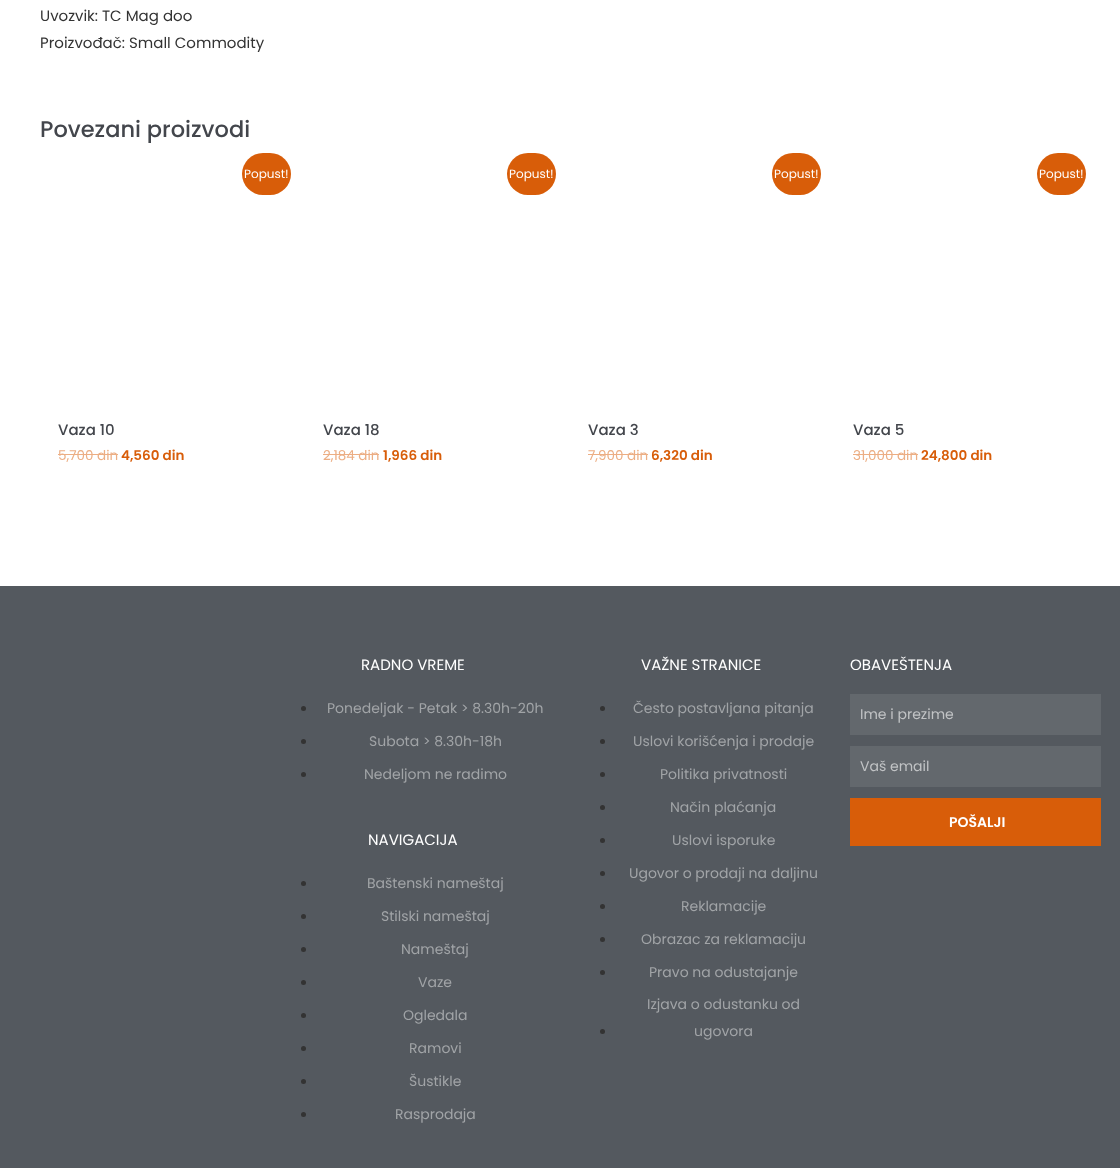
<!DOCTYPE html>
<meta charset="utf-8">
<style>body { margin: 0 } canvas { display: block }</style>
<canvas id="canvas" width="1120" height="1168"></canvas>
<script type="module">
  const canvas = document.getElementById("canvas");
  const ctx = canvas.getContext("2d");
  ctx.miterLimit = 4;
  ctx.fontKerning = "normal";

  ctx.fillStyle = "#ffffff";
  ctx.fillRect(0, 0, 1120, 1168);
  ctx.font = "15px Poppins";
  ctx.fillStyle = "#333333";
  ctx.fillText("Uvozvik: TC Mag doo", 40, 21);
  ctx.fillText("Proizvođač: Small Commodity", 40, 48);
  ctx.font = "500 22.5px Poppins";
  ctx.fillStyle = "#43464c";
  ctx.fillText("Povezani proizvodi", 40, 137);
  ctx.fillStyle = "#d85d09";
  ctx.beginPath();
  ctx.roundRect(242, 153, 49, 42, 21);
  ctx.fill();
  ctx.font = "12px Poppins";
  ctx.fillStyle = "#ffffff";
  ctx.fillText("Popust!", 244, 178);
  ctx.font = "500 15px Poppins";
  ctx.fillStyle = "#43464c";
  ctx.fillText("Vaza 10", 58, 435);
  ctx.font = "13.5px Poppins";
  ctx.fillStyle = "#ecae84";
  ctx.fillText("5,700 din", 58, 460);
  ctx.fillRect(58, 454, 60, 1);
  ctx.font = "600 13.5px Poppins";
  ctx.fillStyle = "#d85d09";
  ctx.fillText("4,560 din", 121, 460);
  ctx.beginPath();
  ctx.roundRect(507, 153, 49, 42, 21);
  ctx.fill();
  ctx.font = "12px Poppins";
  ctx.fillStyle = "#ffffff";
  ctx.fillText("Popust!", 509, 178);
  ctx.font = "500 15px Poppins";
  ctx.fillStyle = "#43464c";
  ctx.fillText("Vaza 18", 323, 435);
  ctx.font = "13.5px Poppins";
  ctx.fillStyle = "#ecae84";
  ctx.fillText("2,184 din", 323, 460);
  ctx.fillRect(323, 454, 56, 1);
  ctx.font = "600 13.5px Poppins";
  ctx.fillStyle = "#d85d09";
  ctx.fillText("1,966 din", 383, 460);
  ctx.beginPath();
  ctx.roundRect(772, 153, 49, 42, 21);
  ctx.fill();
  ctx.font = "12px Poppins";
  ctx.fillStyle = "#ffffff";
  ctx.fillText("Popust!", 774, 178);
  ctx.font = "500 15px Poppins";
  ctx.fillStyle = "#43464c";
  ctx.fillText("Vaza 3", 588, 435);
  ctx.font = "13.5px Poppins";
  ctx.fillStyle = "#ecae84";
  ctx.fillText("7,900 din", 588, 460);
  ctx.fillRect(588, 454, 60, 1);
  ctx.font = "600 13.5px Poppins";
  ctx.fillStyle = "#d85d09";
  ctx.fillText("6,320 din", 651, 460);
  ctx.beginPath();
  ctx.roundRect(1037, 153, 49, 42, 21);
  ctx.fill();
  ctx.font = "12px Poppins";
  ctx.fillStyle = "#ffffff";
  ctx.fillText("Popust!", 1039, 178);
  ctx.font = "500 15px Poppins";
  ctx.fillStyle = "#43464c";
  ctx.fillText("Vaza 5", 853, 435);
  ctx.font = "13.5px Poppins";
  ctx.fillStyle = "#ecae84";
  ctx.fillText("31,000 din", 853, 460);
  ctx.fillRect(853, 454, 65, 1);
  ctx.font = "600 13.5px Poppins";
  ctx.fillStyle = "#d85d09";
  ctx.fillText("24,800 din", 921, 460);
  ctx.fillStyle = "#54595f";
  ctx.fillRect(0, 586, 1120, 582);
  ctx.font = "15px Poppins";
  ctx.fillStyle = "#ffffff";
  ctx.fillText("RADNO VREME", 361, 670);
  ctx.fillStyle = "#333333";
  ctx.beginPath();
  ctx.arc(303.5, 708.5, 2.5, 0, Math.PI * 2);
  ctx.fill();
  ctx.font = "14px Poppins";
  ctx.fillStyle = "#a1a4a7";
  ctx.fillText("Ponedeljak - Petak > 8.30h-20h", 327, 713);
  ctx.fillStyle = "#333333";
  ctx.beginPath();
  ctx.arc(303.5, 741.5, 2.5, 0, Math.PI * 2);
  ctx.fill();
  ctx.fillStyle = "#a1a4a7";
  ctx.fillText("Subota > 8.30h-18h", 369, 746);
  ctx.fillStyle = "#333333";
  ctx.beginPath();
  ctx.arc(303.5, 774.5, 2.5, 0, Math.PI * 2);
  ctx.fill();
  ctx.fillStyle = "#a1a4a7";
  ctx.fillText("Nedeljom ne radimo", 364, 779);
  ctx.font = "15px Poppins";
  ctx.fillStyle = "#ffffff";
  ctx.fillText("NAVIGACIJA", 368, 845);
  ctx.fillStyle = "#333333";
  ctx.beginPath();
  ctx.arc(303.5, 883.5, 2.5, 0, Math.PI * 2);
  ctx.fill();
  ctx.font = "14px Poppins";
  ctx.fillStyle = "#a1a4a7";
  ctx.fillText("Baštenski nameštaj", 367, 888);
  ctx.fillStyle = "#333333";
  ctx.beginPath();
  ctx.arc(303.5, 916.5, 2.5, 0, Math.PI * 2);
  ctx.fill();
  ctx.fillStyle = "#a1a4a7";
  ctx.fillText("Stilski nameštaj", 381, 921);
  ctx.fillStyle = "#333333";
  ctx.beginPath();
  ctx.arc(303.5, 949.5, 2.5, 0, Math.PI * 2);
  ctx.fill();
  ctx.fillStyle = "#a1a4a7";
  ctx.fillText("Nameštaj", 401, 954);
  ctx.fillStyle = "#333333";
  ctx.beginPath();
  ctx.arc(303.5, 982.5, 2.5, 0, Math.PI * 2);
  ctx.fill();
  ctx.fillStyle = "#a1a4a7";
  ctx.fillText("Vaze", 418, 987);
  ctx.fillStyle = "#333333";
  ctx.beginPath();
  ctx.arc(303.5, 1015.5, 2.5, 0, Math.PI * 2);
  ctx.fill();
  ctx.fillStyle = "#a1a4a7";
  ctx.fillText("Ogledala", 403, 1020);
  ctx.fillStyle = "#333333";
  ctx.beginPath();
  ctx.arc(303.5, 1048.5, 2.5, 0, Math.PI * 2);
  ctx.fill();
  ctx.fillStyle = "#a1a4a7";
  ctx.fillText("Ramovi", 409, 1053);
  ctx.fillStyle = "#333333";
  ctx.beginPath();
  ctx.arc(303.5, 1081.5, 2.5, 0, Math.PI * 2);
  ctx.fill();
  ctx.fillStyle = "#a1a4a7";
  ctx.fillText("Šustikle", 409, 1086);
  ctx.fillStyle = "#333333";
  ctx.beginPath();
  ctx.arc(303.5, 1114.5, 2.5, 0, Math.PI * 2);
  ctx.fill();
  ctx.fillStyle = "#a1a4a7";
  ctx.fillText("Rasprodaja", 395, 1119);
  ctx.font = "15px Poppins";
  ctx.fillStyle = "#ffffff";
  ctx.fillText("VAŽNE STRANICE", 641, 670);
  ctx.fillStyle = "#333333";
  ctx.beginPath();
  ctx.arc(602.5, 708.5, 2.5, 0, Math.PI * 2);
  ctx.fill();
  ctx.font = "14px Poppins";
  ctx.fillStyle = "#a1a4a7";
  ctx.fillText("Često postavljana pitanja", 633, 713);
  ctx.fillStyle = "#333333";
  ctx.beginPath();
  ctx.arc(602.5, 741.5, 2.5, 0, Math.PI * 2);
  ctx.fill();
  ctx.fillStyle = "#a1a4a7";
  ctx.fillText("Uslovi korišćenja i prodaje", 633, 746);
  ctx.fillStyle = "#333333";
  ctx.beginPath();
  ctx.arc(602.5, 774.5, 2.5, 0, Math.PI * 2);
  ctx.fill();
  ctx.fillStyle = "#a1a4a7";
  ctx.fillText("Politika privatnosti", 660, 779);
  ctx.fillStyle = "#333333";
  ctx.beginPath();
  ctx.arc(602.5, 807.5, 2.5, 0, Math.PI * 2);
  ctx.fill();
  ctx.fillStyle = "#a1a4a7";
  ctx.fillText("Način plaćanja", 670, 812);
  ctx.fillStyle = "#333333";
  ctx.beginPath();
  ctx.arc(602.5, 840.5, 2.5, 0, Math.PI * 2);
  ctx.fill();
  ctx.fillStyle = "#a1a4a7";
  ctx.fillText("Uslovi isporuke", 672, 845);
  ctx.fillStyle = "#333333";
  ctx.beginPath();
  ctx.arc(602.5, 873.5, 2.5, 0, Math.PI * 2);
  ctx.fill();
  ctx.fillStyle = "#a1a4a7";
  ctx.fillText("Ugovor o prodaji na daljinu", 629, 878);
  ctx.fillStyle = "#333333";
  ctx.beginPath();
  ctx.arc(602.5, 906.5, 2.5, 0, Math.PI * 2);
  ctx.fill();
  ctx.fillStyle = "#a1a4a7";
  ctx.fillText("Reklamacije", 681, 911);
  ctx.fillStyle = "#333333";
  ctx.beginPath();
  ctx.arc(602.5, 939.5, 2.5, 0, Math.PI * 2);
  ctx.fill();
  ctx.fillStyle = "#a1a4a7";
  ctx.fillText("Obrazac za reklamaciju", 641, 944);
  ctx.fillStyle = "#333333";
  ctx.beginPath();
  ctx.arc(602.5, 972.5, 2.5, 0, Math.PI * 2);
  ctx.fill();
  ctx.fillStyle = "#a1a4a7";
  ctx.fillText("Pravo na odustajanje", 649, 977);
  ctx.fillStyle = "#333333";
  ctx.beginPath();
  ctx.arc(602.5, 1031.5, 2.5, 0, Math.PI * 2);
  ctx.fill();
  ctx.fillStyle = "#a1a4a7";
  ctx.fillText("Izjava o odustanku od", 647, 1009);
  ctx.fillText("ugovora", 694, 1036);
  ctx.font = "15px Poppins";
  ctx.fillStyle = "#ffffff";
  ctx.fillText("OBAVEŠTENJA", 850, 670);
  ctx.fillStyle = "#63686d";
  ctx.fillRect(850, 694, 251, 41);
  ctx.font = "14px Poppins";
  ctx.fillStyle = "#c1c3c5";
  ctx.fillText("Ime i prezime", 860, 719);
  ctx.fillStyle = "#63686d";
  ctx.fillRect(850, 746, 251, 41);
  ctx.fillStyle = "#c1c3c5";
  ctx.fillText("Vaš email", 860, 771);
  ctx.fillStyle = "#d85d09";
  ctx.fillRect(850, 798, 251, 48);
  ctx.font = "600 14px Poppins";
  ctx.fillStyle = "#ffffff";
  ctx.fillText("POŠALJI", 949, 827);
</script>
